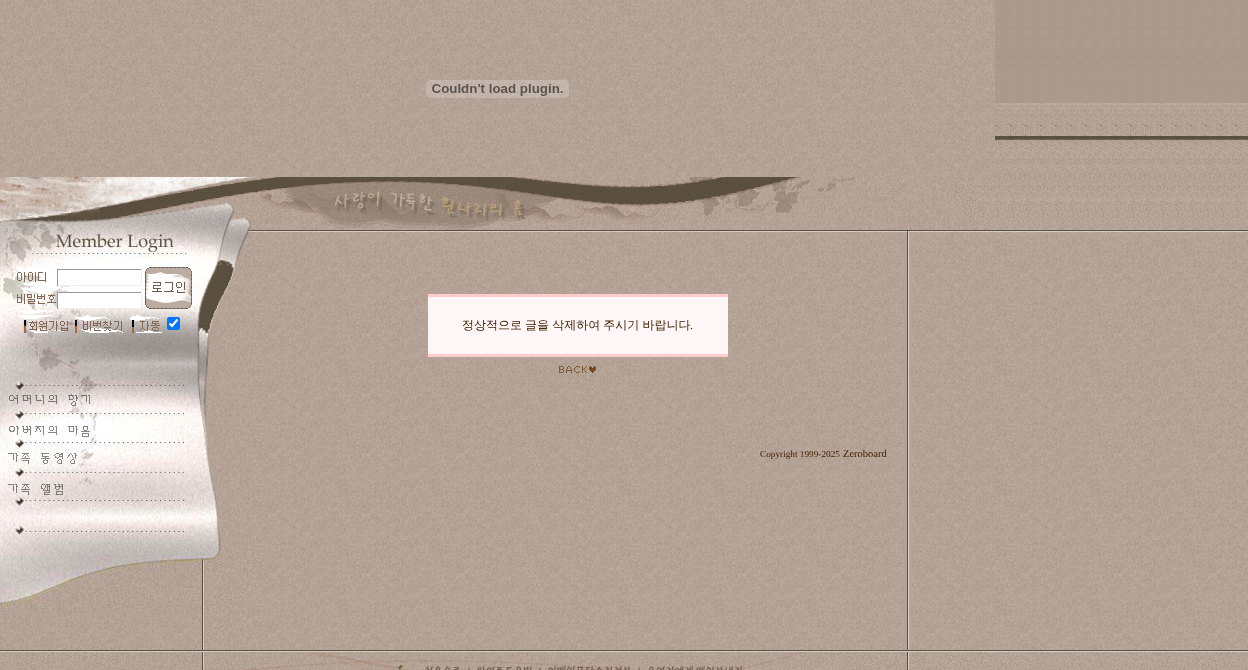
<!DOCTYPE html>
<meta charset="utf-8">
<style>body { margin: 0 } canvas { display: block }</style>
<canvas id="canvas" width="1248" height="670"></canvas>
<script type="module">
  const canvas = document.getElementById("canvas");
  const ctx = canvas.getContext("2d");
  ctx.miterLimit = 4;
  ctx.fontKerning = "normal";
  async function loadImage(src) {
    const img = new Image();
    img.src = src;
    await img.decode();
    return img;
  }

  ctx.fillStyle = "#ffffff";
  ctx.fillRect(0, 0, 1248, 670);
  ctx.drawImage(await loadImage("img1.png"), 0, 0, 1248, 647);
  ctx.drawImage(await loadImage("img2.png"), 426, 80, 143, 18);
  ctx.drawImage(await loadImage("img3.png"), 995, 0, 253, 234);
  ctx.drawImage(await loadImage("img4.png"), 0, 177, 995, 57);
  ctx.drawImage(await loadImage("img5.png"), 0, 234, 198, 376);
  ctx.drawImage(await loadImage("img6.png"), 198, 610, 53, 37);
  ctx.drawImage(await loadImage("img7.png"), 198, 234, 53, 376);
  ctx.drawImage(await loadImage("img8.png"), 17, 267, 29, 20);
  ctx.fillRect(58, 282, 22, 3);
  ctx.fillStyle = "#999999";
  ctx.fillRect(57, 269, 85, 1);
  ctx.fillStyle = "#eeeeee";
  ctx.fillRect(141, 269, 1, 17);
  ctx.fillRect(57, 285, 85, 1);
  ctx.fillStyle = "#999999";
  ctx.fillRect(57, 269, 1, 17);
  ctx.drawImage(await loadImage("img9.png"), 145, 267, 47, 42);
  ctx.drawImage(await loadImage("img10.png"), 17, 287, 40, 27);
  ctx.fillStyle = "#ffffff";
  ctx.fillRect(58, 293, 83, 15);
  ctx.fillStyle = "#999999";
  ctx.fillRect(57, 292, 85, 1);
  ctx.fillStyle = "#eeeeee";
  ctx.fillRect(141, 292, 1, 17);
  ctx.fillRect(57, 308, 85, 1);
  ctx.fillStyle = "#999999";
  ctx.fillRect(57, 292, 1, 17);
  ctx.drawImage(await loadImage("img11.png"), 18, 315, 50, 18);
  ctx.drawImage(await loadImage("img12.png"), 74, 315, 49, 18);
  ctx.drawImage(await loadImage("img13.png"), 130, 315, 32, 18);
  ctx.fillStyle = "#0075ff";
  ctx.beginPath();
  ctx.roundRect(167, 317, 13, 13, 2);
  ctx.fill();
  ctx.beginPath();
  ctx.moveTo(169.5, 323.5);
  ctx.lineTo(172, 326);
  ctx.lineTo(177.5, 319.5);
  ctx.strokeStyle = "#ffffff";
  ctx.lineWidth = 2.1;
  ctx.stroke();
  ctx.fillStyle = "#ffcccc";
  ctx.fillRect(428, 294, 300, 3);
  ctx.fillStyle = "#fff7f7";
  ctx.fillRect(428, 297, 300, 57);
  ctx.wordSpacing = "-0.5px";
  ctx.font = "500 12px WenQuanYi Zen Hei";
  ctx.fillStyle = "#402000";
  ctx.fillText("정상적으로 글을 삭제하여 주시기 바랍니다", 462, 329);
  ctx.wordSpacing = "0px";
  ctx.font = "12px Liberation Serif";
  ctx.fillText(".", 690, 329);
  ctx.fillStyle = "#ffcccc";
  ctx.fillRect(428, 354, 300, 3);
  ctx.drawImage(await loadImage("img14.png"), 559, 366, 37, 7);
  ctx.font = "9.25px Liberation Serif";
  ctx.fillStyle = "#402000";
  ctx.fillText("Copyright 1999-2025", 760, 457);
  ctx.font = "10.5px Liberation Serif";
  ctx.fillText("Zeroboard", 843, 457);
  ctx.drawImage(await loadImage("img15.png"), 904, 234, 7, 413);
  ctx.drawImage(await loadImage("img16.png"), 0, 647, 995, 23);
  ctx.drawImage(await loadImage("img17.png"), 995, 647, 253, 23);
</script>
